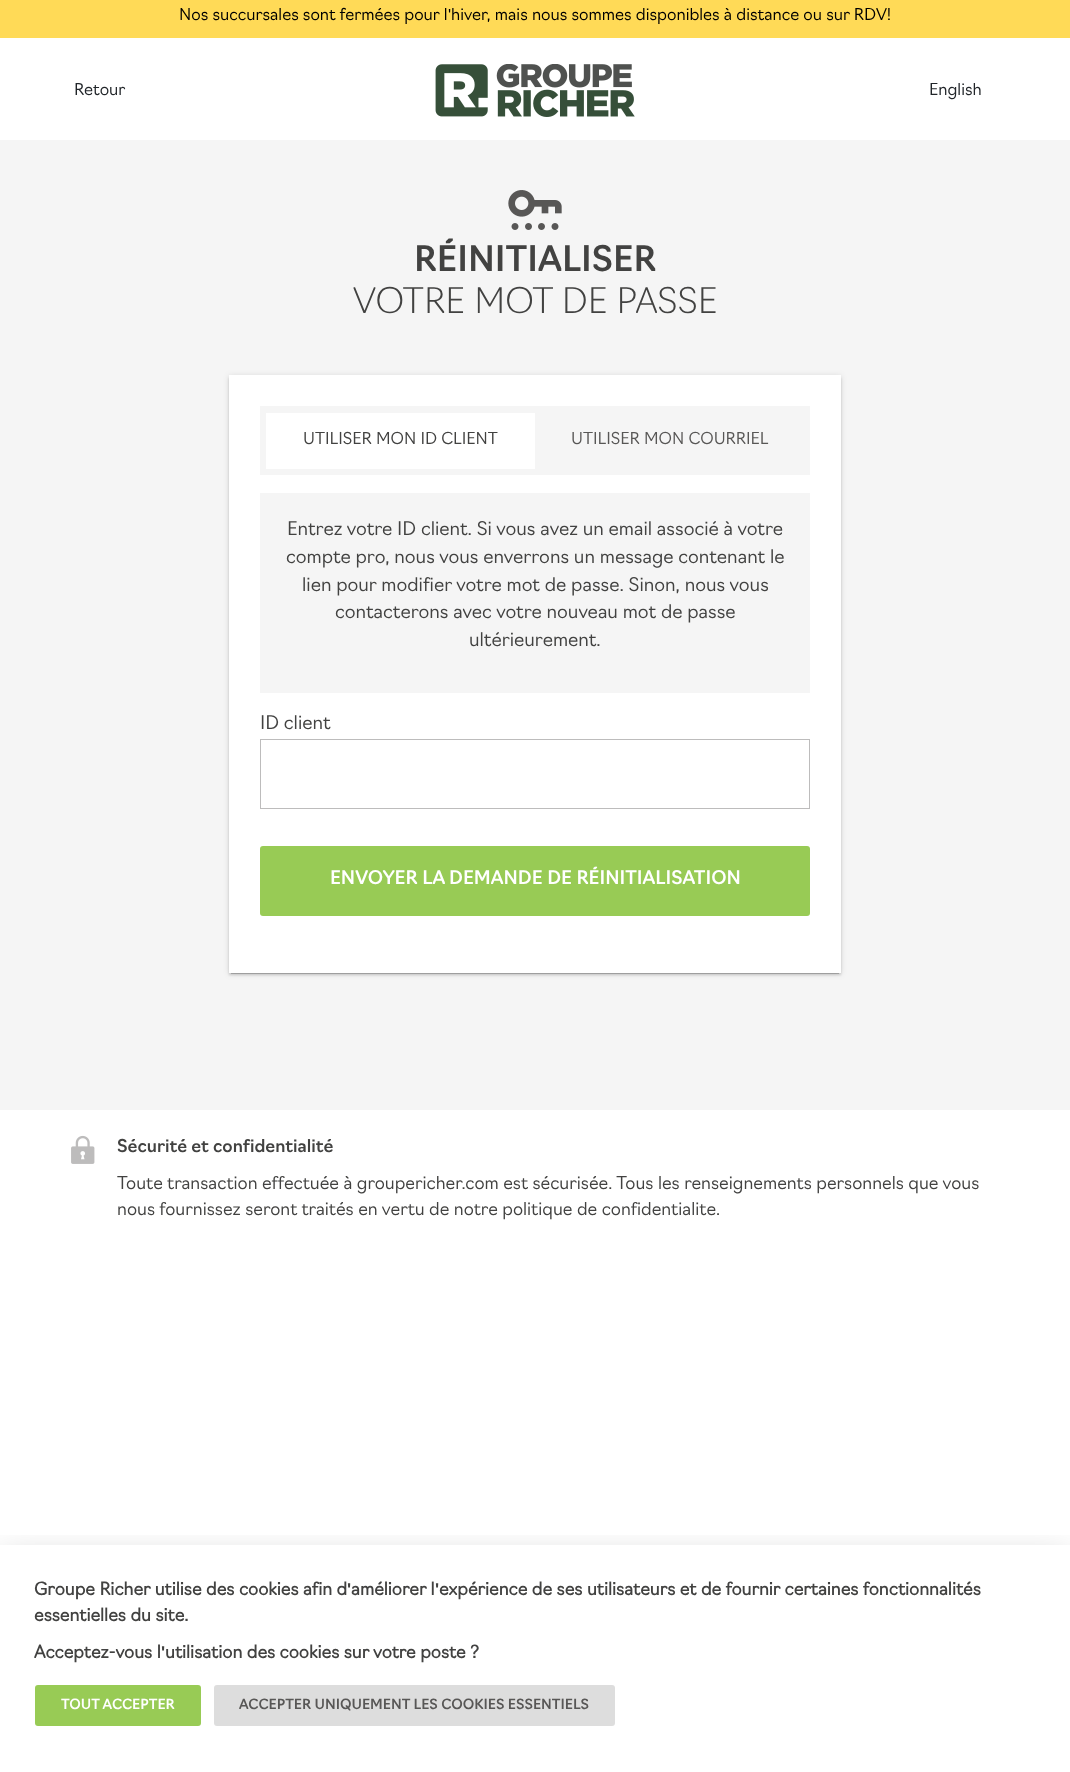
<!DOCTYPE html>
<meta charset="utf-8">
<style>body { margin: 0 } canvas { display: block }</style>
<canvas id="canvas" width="1070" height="1772"></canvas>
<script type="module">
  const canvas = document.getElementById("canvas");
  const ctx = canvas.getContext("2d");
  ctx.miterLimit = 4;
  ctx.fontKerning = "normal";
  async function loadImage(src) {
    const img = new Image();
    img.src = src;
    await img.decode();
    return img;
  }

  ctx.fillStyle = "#ffffff";
  ctx.fillRect(0, 0, 1070, 1772);
  ctx.fillStyle = "#ffda57";
  ctx.fillRect(0, 0, 1070, 38);
  ctx.font = "300 16.1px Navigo";
  ctx.fillStyle = "#000000";
  ctx.fillText("Nos succursales sont fermées pour l", 179, 20);
  ctx.font = "16.1px Liberation Sans";
  ctx.fillText("'", 448, 20);
  ctx.font = "300 16.1px Navigo";
  ctx.fillText("hiver, mais nous sommes disponibles à distance ou sur RDV!", 451, 20);
  ctx.fillStyle = "#212529";
  ctx.fillText("Retour", 74, 95);
  ctx.drawImage(await loadImage("img1.png"), 435, 64, 200, 53);
  ctx.fillText("English", 929, 95);
  ctx.fillStyle = "#f5f5f5";
  ctx.fillRect(0, 140, 1070, 970);
  ctx.drawImage(await loadImage("img2.png"), 508, 190, 54, 40);
  ctx.font = "500 34.5px Navigo";
  ctx.fillStyle = "#424241";
  ctx.fillText("RÉINITIALISER", 414, 271);
  ctx.font = "200 34.5px Navigo";
  ctx.fillText("VOTRE MOT DE PASSE", 353, 313);
  ctx.fillStyle = "rgba(0, 0, 0, 0.2)";
  ctx.filter = "blur(0.5px)";
  ctx.beginPath();
  ctx.rect(231, 381, 608, 593);
  ctx.fill();
  ctx.filter = "none";
  ctx.fillStyle = "rgba(0, 0, 0, 0.14)";
  ctx.filter = "blur(1px)";
  ctx.beginPath();
  ctx.rect(229, 378, 612, 597);
  ctx.fill();
  ctx.filter = "none";
  ctx.fillStyle = "rgba(0, 0, 0, 0.12)";
  ctx.filter = "blur(3px)";
  ctx.beginPath();
  ctx.rect(229, 376, 612, 598);
  ctx.fill();
  ctx.filter = "none";
  ctx.fillStyle = "#ffffff";
  ctx.fillRect(229, 375, 612, 598);
  ctx.fillStyle = "#f5f5f5";
  ctx.fillRect(260, 406, 550, 69);
  ctx.fillStyle = "#ffffff";
  ctx.fillRect(266, 413, 269, 56);
  ctx.font = "300 16.1px Navigo";
  ctx.fillStyle = "#424241";
  ctx.fillText("UTILISER MON ID CLIENT", 303, 444);
  ctx.fillStyle = "#585756";
  ctx.fillText("UTILISER MON COURRIEL", 571, 444);
  ctx.fillStyle = "#f5f5f5";
  ctx.fillRect(260, 493, 550, 200);
  ctx.font = "300 18.4px Navigo";
  ctx.fillStyle = "#424241";
  ctx.fillText("Entrez votre ID client. Si vous avez un email associé à votre", 287, 535);
  ctx.fillText("compte pro, nous vous enverrons un message contenant le", 286, 563);
  ctx.fillText("lien pour modifier votre mot de passe. Sinon, nous vous", 302, 591);
  ctx.fillText("contacterons avec votre nouveau mot de passe", 335, 618);
  ctx.fillText("ultérieurement.", 469, 646);
  ctx.fillText("ID client", 260, 729);
  ctx.strokeStyle = "#bdbcbc";
  ctx.strokeRect(260.5, 739.5, 549, 69);
  ctx.fillStyle = "#98cb55";
  ctx.beginPath();
  ctx.roundRect(260, 846, 550, 70, 3);
  ctx.fill();
  ctx.font = "500 18.4px Navigo";
  ctx.fillStyle = "#ffffff";
  ctx.fillText("ENVOYER LA DEMANDE DE RÉINITIALISATION", 330, 884);
  ctx.drawImage(await loadImage("img3.png"), 71, 1135, 24, 29);
  ctx.font = "500 17.25px Navigo";
  ctx.fillStyle = "#424241";
  ctx.fillText("Sécurité et confidentialité", 117, 1152);
  ctx.font = "300 17.25px Navigo";
  ctx.fillText("Toute transaction effectuée à groupericher.com est sécurisée. Tous les renseignements personnels que vous", 117, 1189);
  ctx.fillText("nous fournissez seront traités en vertu de notre politique de confidentialite.", 117, 1215);
  ctx.save();
  ctx.beginPath();
  ctx.rect(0, 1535, 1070, 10);
  ctx.clip();
  ctx.fillStyle = "rgba(0, 0, 0, 0.18)";
  ctx.filter = "blur(17px)";
  ctx.beginPath();
  ctx.rect(0, 1556, 1070, 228);
  ctx.fill();
  ctx.filter = "none";
  ctx.restore();
  ctx.font = "bold 17.25px Navigo";
  ctx.fillText("Groupe Richer utilise des cookies afin d", 34, 1595);
  ctx.font = "bold 17.25px Liberation Sans";
  ctx.fillText("'", 347, 1595);
  ctx.font = "bold 17.25px Navigo";
  ctx.fillText("améliorer l", 351, 1595);
  ctx.font = "bold 17.25px Liberation Sans";
  ctx.fillText("'", 435, 1595);
  ctx.font = "bold 17.25px Navigo";
  ctx.fillText("expérience de ses utilisateurs et de fournir certaines fonctionnalités", 439, 1595);
  ctx.fillText("essentielles du site.", 34, 1621);
  ctx.fillText("Acceptez-vous l", 34, 1658);
  ctx.font = "bold 17.25px Liberation Sans";
  ctx.fillText("'", 161, 1658);
  ctx.font = "bold 17.25px Navigo";
  ctx.fillText("utilisation des cookies sur votre poste ?", 165, 1658);
  ctx.fillStyle = "#98cb55";
  ctx.beginPath();
  ctx.roundRect(35, 1685, 166, 41, 3);
  ctx.fill();
  ctx.font = "500 13.8px Navigo";
  ctx.fillStyle = "#ffffff";
  ctx.fillText("TOUT ACCEPTER", 61, 1709);
  ctx.fillStyle = "#dddddd";
  ctx.beginPath();
  ctx.roundRect(214, 1685, 401, 41, 3);
  ctx.fill();
  ctx.fillStyle = "#585756";
  ctx.fillText("ACCEPTER UNIQUEMENT LES COOKIES ESSENTIELS", 239, 1709);
</script>
